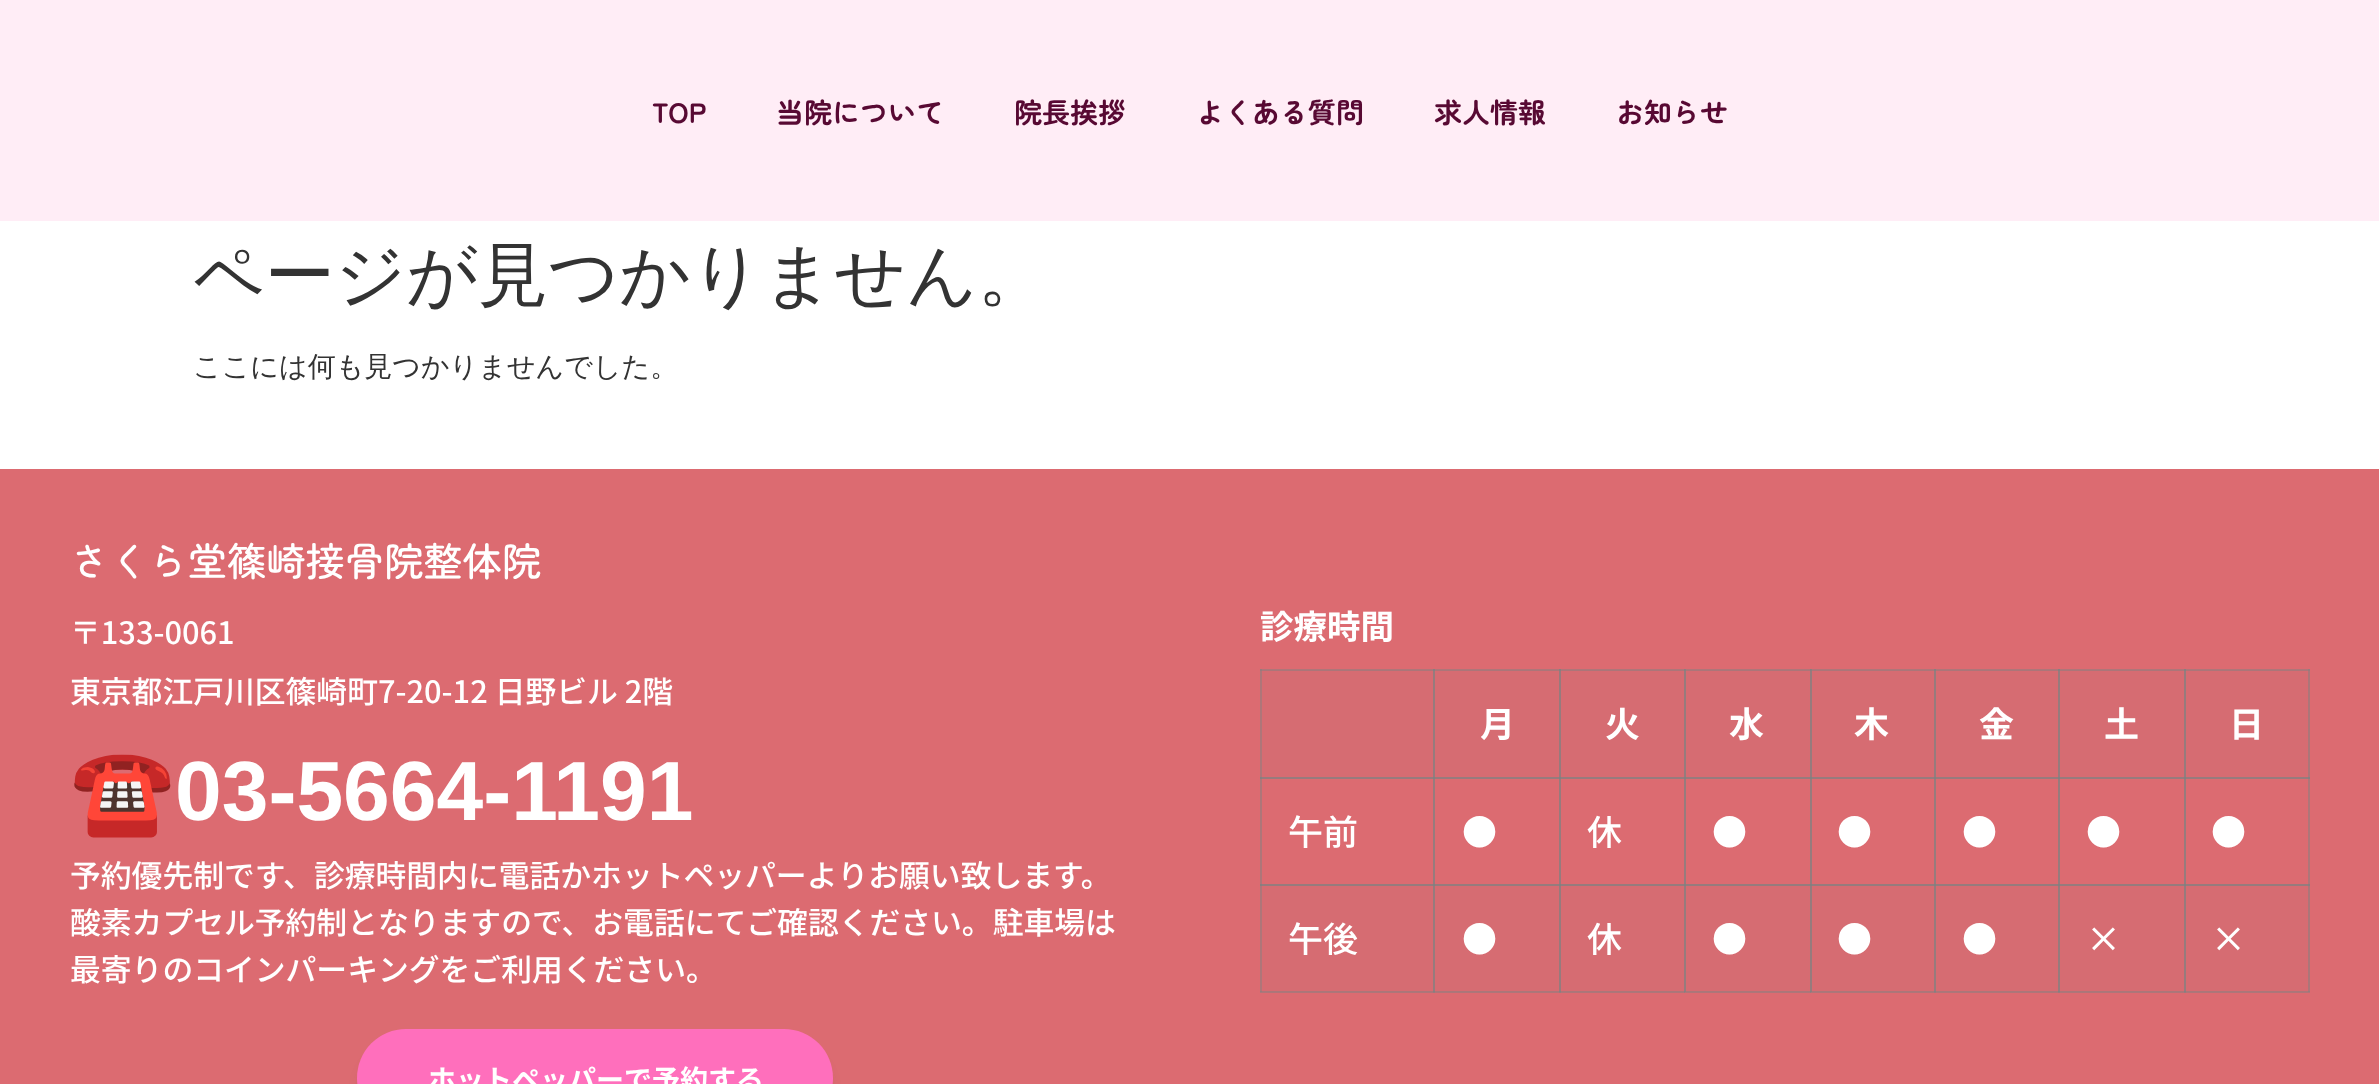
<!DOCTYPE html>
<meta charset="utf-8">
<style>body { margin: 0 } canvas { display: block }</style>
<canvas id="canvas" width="2379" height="1084"></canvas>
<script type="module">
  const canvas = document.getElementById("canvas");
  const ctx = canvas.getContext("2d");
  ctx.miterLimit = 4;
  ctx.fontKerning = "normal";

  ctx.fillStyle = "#ffffff";
  ctx.fillRect(0, 0, 2379, 1084);
  ctx.fillStyle = "#ffedf6";
  ctx.fillRect(0, 0, 2379, 221);
  ctx.font = "bold 28px Zen Maru Gothic";
  ctx.fillStyle = "#580933";
  ctx.fillText("TOP", 652, 123);
  ctx.fillText("当院について", 776, 123);
  ctx.fillText("院長挨拶", 1014, 123);
  ctx.fillText("よくある質問", 1196, 123);
  ctx.fillText("求人情報", 1434, 123);
  ctx.fillText("お知らせ", 1616, 123);
  ctx.font = "500 70px WenQuanYi Zen Hei";
  ctx.fillStyle = "#333333";
  ctx.fillText("ページが見つかりません。", 193, 299);
  ctx.font = "500 28px WenQuanYi Zen Hei";
  ctx.fillText("ここには何も見つかりませんでした。", 193, 376);
  ctx.fillStyle = "#dc6b71";
  ctx.fillRect(0, 469, 2379, 615);
  ctx.fillStyle = "#ae7679";
  ctx.fillRect(1260, 669, 2, 323);
  ctx.fillRect(1260, 669, 1050, 1);
  ctx.fillStyle = "#977b7d";
  ctx.fillRect(1260, 669, 2, 2);
  ctx.fillStyle = "#867f80";
  ctx.fillRect(1433, 669, 2, 1);
  ctx.fillRect(1559, 669, 2, 1);
  ctx.fillStyle = "#8c7e7f";
  ctx.fillRect(1684, 669, 2, 1);
  ctx.fillStyle = "#867f80";
  ctx.fillRect(1684, 669, 1, 2);
  ctx.fillStyle = "#8c7e7f";
  ctx.fillRect(1810, 669, 2, 1);
  ctx.fillStyle = "#867f80";
  ctx.fillRect(1810, 669, 1, 2);
  ctx.fillRect(1934, 669, 2, 1);
  ctx.fillRect(2058, 669, 2, 1);
  ctx.fillRect(2184, 669, 2, 1);
  ctx.fillStyle = "#977b7d";
  ctx.fillRect(2308, 669, 2, 1);
  ctx.fillRect(1260, 777, 175, 2);
  ctx.fillStyle = "#867f80";
  ctx.fillRect(1260, 777, 2, 2);
  ctx.fillStyle = "#977b7d";
  ctx.fillRect(1433, 777, 2, 109);
  ctx.fillRect(1433, 777, 128, 2);
  ctx.fillStyle = "#818080";
  ctx.fillRect(1433, 777, 2, 2);
  ctx.fillStyle = "#977b7d";
  ctx.fillRect(1559, 777, 2, 109);
  ctx.fillRect(1559, 777, 126, 2);
  ctx.fillStyle = "#818080";
  ctx.fillRect(1559, 777, 2, 2);
  ctx.fillStyle = "#977b7d";
  ctx.fillRect(1684, 777, 2, 109);
  ctx.fillRect(1684, 777, 127, 2);
  ctx.fillStyle = "#828080";
  ctx.fillRect(1684, 777, 2, 2);
  ctx.fillStyle = "#977b7d";
  ctx.fillRect(1810, 777, 2, 109);
  ctx.fillRect(1810, 777, 126, 2);
  ctx.fillStyle = "#828080";
  ctx.fillRect(1810, 777, 2, 2);
  ctx.fillStyle = "#977b7d";
  ctx.fillRect(1934, 777, 2, 109);
  ctx.fillRect(1934, 777, 126, 2);
  ctx.fillStyle = "#818080";
  ctx.fillRect(1934, 777, 2, 2);
  ctx.fillStyle = "#977b7d";
  ctx.fillRect(2058, 777, 2, 109);
  ctx.fillRect(2058, 777, 128, 2);
  ctx.fillStyle = "#818080";
  ctx.fillRect(2058, 777, 2, 2);
  ctx.fillStyle = "#977b7d";
  ctx.fillRect(2184, 777, 2, 109);
  ctx.fillStyle = "#ae7679";
  ctx.fillRect(2308, 777, 2, 109);
  ctx.fillRect(1260, 992, 1050, 1);
  ctx.fillStyle = "#977b7d";
  ctx.fillRect(1260, 991, 2, 1);
  ctx.fillStyle = "#867f80";
  ctx.fillRect(1260, 884, 2, 2);
  ctx.fillStyle = "#977b7d";
  ctx.fillRect(1433, 992, 2, 1);
  ctx.fillRect(1559, 992, 2, 1);
  ctx.fillRect(1684, 991, 1, 2);
  ctx.fillRect(1810, 991, 1, 2);
  ctx.fillRect(1934, 992, 2, 1);
  ctx.fillRect(2058, 992, 2, 1);
  ctx.fillRect(2184, 992, 2, 1);
  ctx.font = "500 39.25px Zen Maru Gothic";
  ctx.fillStyle = "#ffffff";
  ctx.fillText("さくら堂篠崎接骨院整体院", 70, 576);
  ctx.font = "500 30.8px Noto Sans JP";
  ctx.fillText("〒133-0061", 70, 644);
  ctx.fillText("東京都江戸川区篠崎町7-20-12 日野ビル 2階", 70, 703);
  ctx.font = "bold 84px Noto Color Emoji";
  ctx.fillText("☎️", 70, 820);
  ctx.font = "bold 84px Liberation Sans";
  ctx.fillText("03-5664-1191", 175, 820);
  ctx.font = "500 30.8px Noto Sans JP";
  ctx.fillText("予約優先制です、診療時間内に電話かホットペッパーよりお願い致します。", 70, 887);
  ctx.fillText("酸素カプセル予約制となりますので、お電話にてご確認ください。駐車場は", 70, 934);
  ctx.fillText("最寄りのコインパーキングをご利用ください。", 70, 981);
  ctx.fillStyle = "rgba(46, 45, 45, 0.24)";
  ctx.filter = "blur(8px)";
  ctx.beginPath();
  ctx.roundRect(364, 1052, 462, 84, 42);
  ctx.fill();
  ctx.filter = "none";
  ctx.fillStyle = "#ff6fbc";
  ctx.beginPath();
  ctx.roundRect(357, 1029, 476, 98, 49);
  ctx.fill();
  ctx.font = "bold 28px Noto Sans JP";
  ctx.fillStyle = "#ffffff";
  ctx.fillText("ホットペッパーで予約する", 428, 1090);
  ctx.font = "bold 33.5px Noto Sans JP";
  ctx.fillText("診療時間", 1260, 639);
  ctx.fillStyle = "#d66c72";
  ctx.fillRect(1262, 671, 171, 106);
  ctx.fillStyle = "#ab7679";
  ctx.fillRect(1262, 670, 297, 1);
  ctx.fillStyle = "#967b7d";
  ctx.fillRect(1433, 670, 2, 107);
  ctx.fillStyle = "#867f80";
  ctx.fillRect(1433, 670, 2, 1);
  ctx.fillStyle = "#d66c72";
  ctx.fillRect(1561, 671, 123, 106);
  ctx.fillStyle = "#967b7d";
  ctx.fillRect(1559, 670, 2, 107);
  ctx.fillStyle = "#ab7679";
  ctx.fillRect(1559, 670, 126, 1);
  ctx.fillStyle = "#867f80";
  ctx.fillRect(1559, 670, 2, 1);
  ctx.fillStyle = "#967b7d";
  ctx.fillRect(1684, 670, 2, 107);
  ctx.fillStyle = "#867f80";
  ctx.fillRect(1684, 670, 1, 1);
  ctx.font = "bold 35px Noto Sans JP";
  ctx.fillStyle = "#ffffff";
  ctx.fillText("火", 1605, 737);
  ctx.fillStyle = "#d66c72";
  ctx.fillRect(1686, 671, 124, 106);
  ctx.fillStyle = "#ab7679";
  ctx.fillRect(1685, 670, 125, 1);
  ctx.fillStyle = "#8b7e7f";
  ctx.fillRect(1685, 670, 1, 1);
  ctx.fillStyle = "#ffffff";
  ctx.fillText("水", 1729, 737);
  ctx.fillStyle = "#d66c72";
  ctx.fillRect(1812, 671, 122, 106);
  ctx.fillStyle = "#967b7d";
  ctx.fillRect(1810, 670, 2, 107);
  ctx.fillStyle = "#ab7679";
  ctx.fillRect(1810, 670, 124, 1);
  ctx.fillStyle = "#8b7e7f";
  ctx.fillRect(1810, 670, 2, 1);
  ctx.fillStyle = "#867f80";
  ctx.fillRect(1810, 670, 1, 1);
  ctx.fillStyle = "#ffffff";
  ctx.fillText("木", 1854, 737);
  ctx.fillStyle = "#d66c72";
  ctx.fillRect(1936, 671, 122, 106);
  ctx.fillStyle = "#967b7d";
  ctx.fillRect(1934, 670, 2, 107);
  ctx.fillStyle = "#ab7679";
  ctx.fillRect(1934, 670, 250, 1);
  ctx.fillStyle = "#867f80";
  ctx.fillRect(1934, 670, 2, 1);
  ctx.fillStyle = "#967b7d";
  ctx.fillRect(2058, 670, 2, 107);
  ctx.fillStyle = "#867f80";
  ctx.fillRect(2058, 670, 2, 1);
  ctx.fillStyle = "#ffffff";
  ctx.fillText("金", 1979, 737);
  ctx.fillStyle = "#d66c72";
  ctx.fillRect(2060, 671, 124, 106);
  ctx.fillStyle = "#ffffff";
  ctx.fillText("土", 2104, 737);
  ctx.fillStyle = "#d66c72";
  ctx.fillRect(1435, 671, 124, 106);
  ctx.fillStyle = "#ffffff";
  ctx.fillText("月", 1480, 737);
  ctx.fillStyle = "#d66c72";
  ctx.fillRect(2186, 671, 122, 106);
  ctx.fillStyle = "#967b7d";
  ctx.fillRect(2184, 670, 2, 107);
  ctx.fillStyle = "#ab7679";
  ctx.fillRect(2308, 670, 2, 107);
  ctx.fillRect(2184, 670, 126, 1);
  ctx.fillStyle = "#867f80";
  ctx.fillRect(2184, 670, 2, 1);
  ctx.fillStyle = "#967b7d";
  ctx.fillRect(2308, 670, 2, 1);
  ctx.fillStyle = "#ffffff";
  ctx.fillText("日", 2229, 737);
  ctx.font = "500 35px Noto Sans JP";
  ctx.fillText("午前", 1288, 845);
  ctx.fillText("●", 1462, 845);
  ctx.fillText("休", 1587, 845);
  ctx.fillText("●", 1712, 845);
  ctx.fillText("●", 1837, 845);
  ctx.fillText("●", 1962, 845);
  ctx.fillText("●", 2086, 845);
  ctx.fillStyle = "#977b7d";
  ctx.fillRect(2184, 777, 126, 2);
  ctx.fillStyle = "#818080";
  ctx.fillRect(2184, 777, 2, 2);
  ctx.fillStyle = "#867f80";
  ctx.fillRect(2308, 777, 2, 2);
  ctx.fillStyle = "#ffffff";
  ctx.fillText("●", 2211, 845);
  ctx.fillStyle = "#d66c72";
  ctx.fillRect(1262, 886, 171, 105);
  ctx.fillStyle = "#ab7679";
  ctx.fillRect(1262, 991, 297, 1);
  ctx.fillStyle = "#967b7d";
  ctx.fillRect(1262, 884, 297, 2);
  ctx.fillRect(1433, 884, 2, 108);
  ctx.fillStyle = "#867f80";
  ctx.fillRect(1433, 991, 2, 1);
  ctx.fillStyle = "#818080";
  ctx.fillRect(1433, 884, 2, 2);
  ctx.fillStyle = "#ffffff";
  ctx.fillText("午後", 1288, 952);
  ctx.fillStyle = "#d66c72";
  ctx.fillRect(1435, 886, 124, 105);
  ctx.fillStyle = "#ffffff";
  ctx.fillText("●", 1462, 952);
  ctx.fillStyle = "#d66c72";
  ctx.fillRect(1561, 886, 123, 105);
  ctx.fillStyle = "#967b7d";
  ctx.fillRect(1559, 884, 2, 108);
  ctx.fillStyle = "#ab7679";
  ctx.fillRect(1559, 991, 126, 1);
  ctx.fillStyle = "#867f80";
  ctx.fillRect(1559, 991, 2, 1);
  ctx.fillStyle = "#967b7d";
  ctx.fillRect(1559, 884, 126, 2);
  ctx.fillStyle = "#818080";
  ctx.fillRect(1559, 884, 2, 2);
  ctx.fillStyle = "#967b7d";
  ctx.fillRect(1684, 884, 2, 108);
  ctx.fillStyle = "#867f80";
  ctx.fillRect(1684, 991, 1, 1);
  ctx.fillStyle = "#818080";
  ctx.fillRect(1684, 884, 1, 2);
  ctx.fillStyle = "#ffffff";
  ctx.fillText("休", 1587, 952);
  ctx.fillStyle = "#d66c72";
  ctx.fillRect(1686, 886, 124, 105);
  ctx.fillStyle = "#ab7679";
  ctx.fillRect(1685, 991, 125, 1);
  ctx.fillStyle = "#8b7e7f";
  ctx.fillRect(1685, 991, 1, 1);
  ctx.fillStyle = "#967b7d";
  ctx.fillRect(1685, 884, 125, 2);
  ctx.fillStyle = "#828080";
  ctx.fillRect(1685, 884, 1, 2);
  ctx.fillStyle = "#ffffff";
  ctx.fillText("●", 1712, 952);
  ctx.fillStyle = "#d66c72";
  ctx.fillRect(1812, 886, 122, 105);
  ctx.fillStyle = "#967b7d";
  ctx.fillRect(1810, 884, 2, 108);
  ctx.fillStyle = "#ab7679";
  ctx.fillRect(1810, 991, 124, 1);
  ctx.fillStyle = "#8b7e7f";
  ctx.fillRect(1810, 991, 2, 1);
  ctx.fillStyle = "#867f80";
  ctx.fillRect(1810, 991, 1, 1);
  ctx.fillStyle = "#967b7d";
  ctx.fillRect(1810, 884, 124, 2);
  ctx.fillStyle = "#828080";
  ctx.fillRect(1810, 884, 2, 2);
  ctx.fillStyle = "#ffffff";
  ctx.fillText("●", 1837, 952);
  ctx.fillStyle = "#d66c72";
  ctx.fillRect(1936, 886, 122, 105);
  ctx.fillStyle = "#967b7d";
  ctx.fillRect(1934, 884, 2, 108);
  ctx.fillStyle = "#ab7679";
  ctx.fillRect(1934, 991, 250, 1);
  ctx.fillStyle = "#867f80";
  ctx.fillRect(1934, 991, 2, 1);
  ctx.fillStyle = "#967b7d";
  ctx.fillRect(1934, 884, 250, 2);
  ctx.fillStyle = "#818080";
  ctx.fillRect(1934, 884, 2, 2);
  ctx.fillStyle = "#967b7d";
  ctx.fillRect(2058, 884, 2, 108);
  ctx.fillStyle = "#867f80";
  ctx.fillRect(2058, 991, 2, 1);
  ctx.fillStyle = "#818080";
  ctx.fillRect(2058, 884, 2, 2);
  ctx.fillStyle = "#ffffff";
  ctx.fillText("●", 1962, 952);
  ctx.fillStyle = "#d66c72";
  ctx.fillRect(2060, 886, 124, 105);
  ctx.fillStyle = "#ffffff";
  ctx.fillText("×", 2086, 952);
  ctx.fillStyle = "#d66c72";
  ctx.fillRect(2186, 886, 122, 105);
  ctx.fillStyle = "#967b7d";
  ctx.fillRect(2184, 884, 2, 108);
  ctx.fillStyle = "#ab7679";
  ctx.fillRect(2184, 991, 126, 1);
  ctx.fillStyle = "#867f80";
  ctx.fillRect(2184, 991, 2, 1);
  ctx.fillStyle = "#ab7679";
  ctx.fillRect(2308, 884, 2, 108);
  ctx.fillStyle = "#967b7d";
  ctx.fillRect(2308, 991, 2, 1);
  ctx.fillRect(2184, 884, 126, 2);
  ctx.fillStyle = "#818080";
  ctx.fillRect(2184, 884, 2, 2);
  ctx.fillStyle = "#867f80";
  ctx.fillRect(2308, 884, 2, 2);
  ctx.fillStyle = "#ffffff";
  ctx.fillText("×", 2211, 952);
</script>
